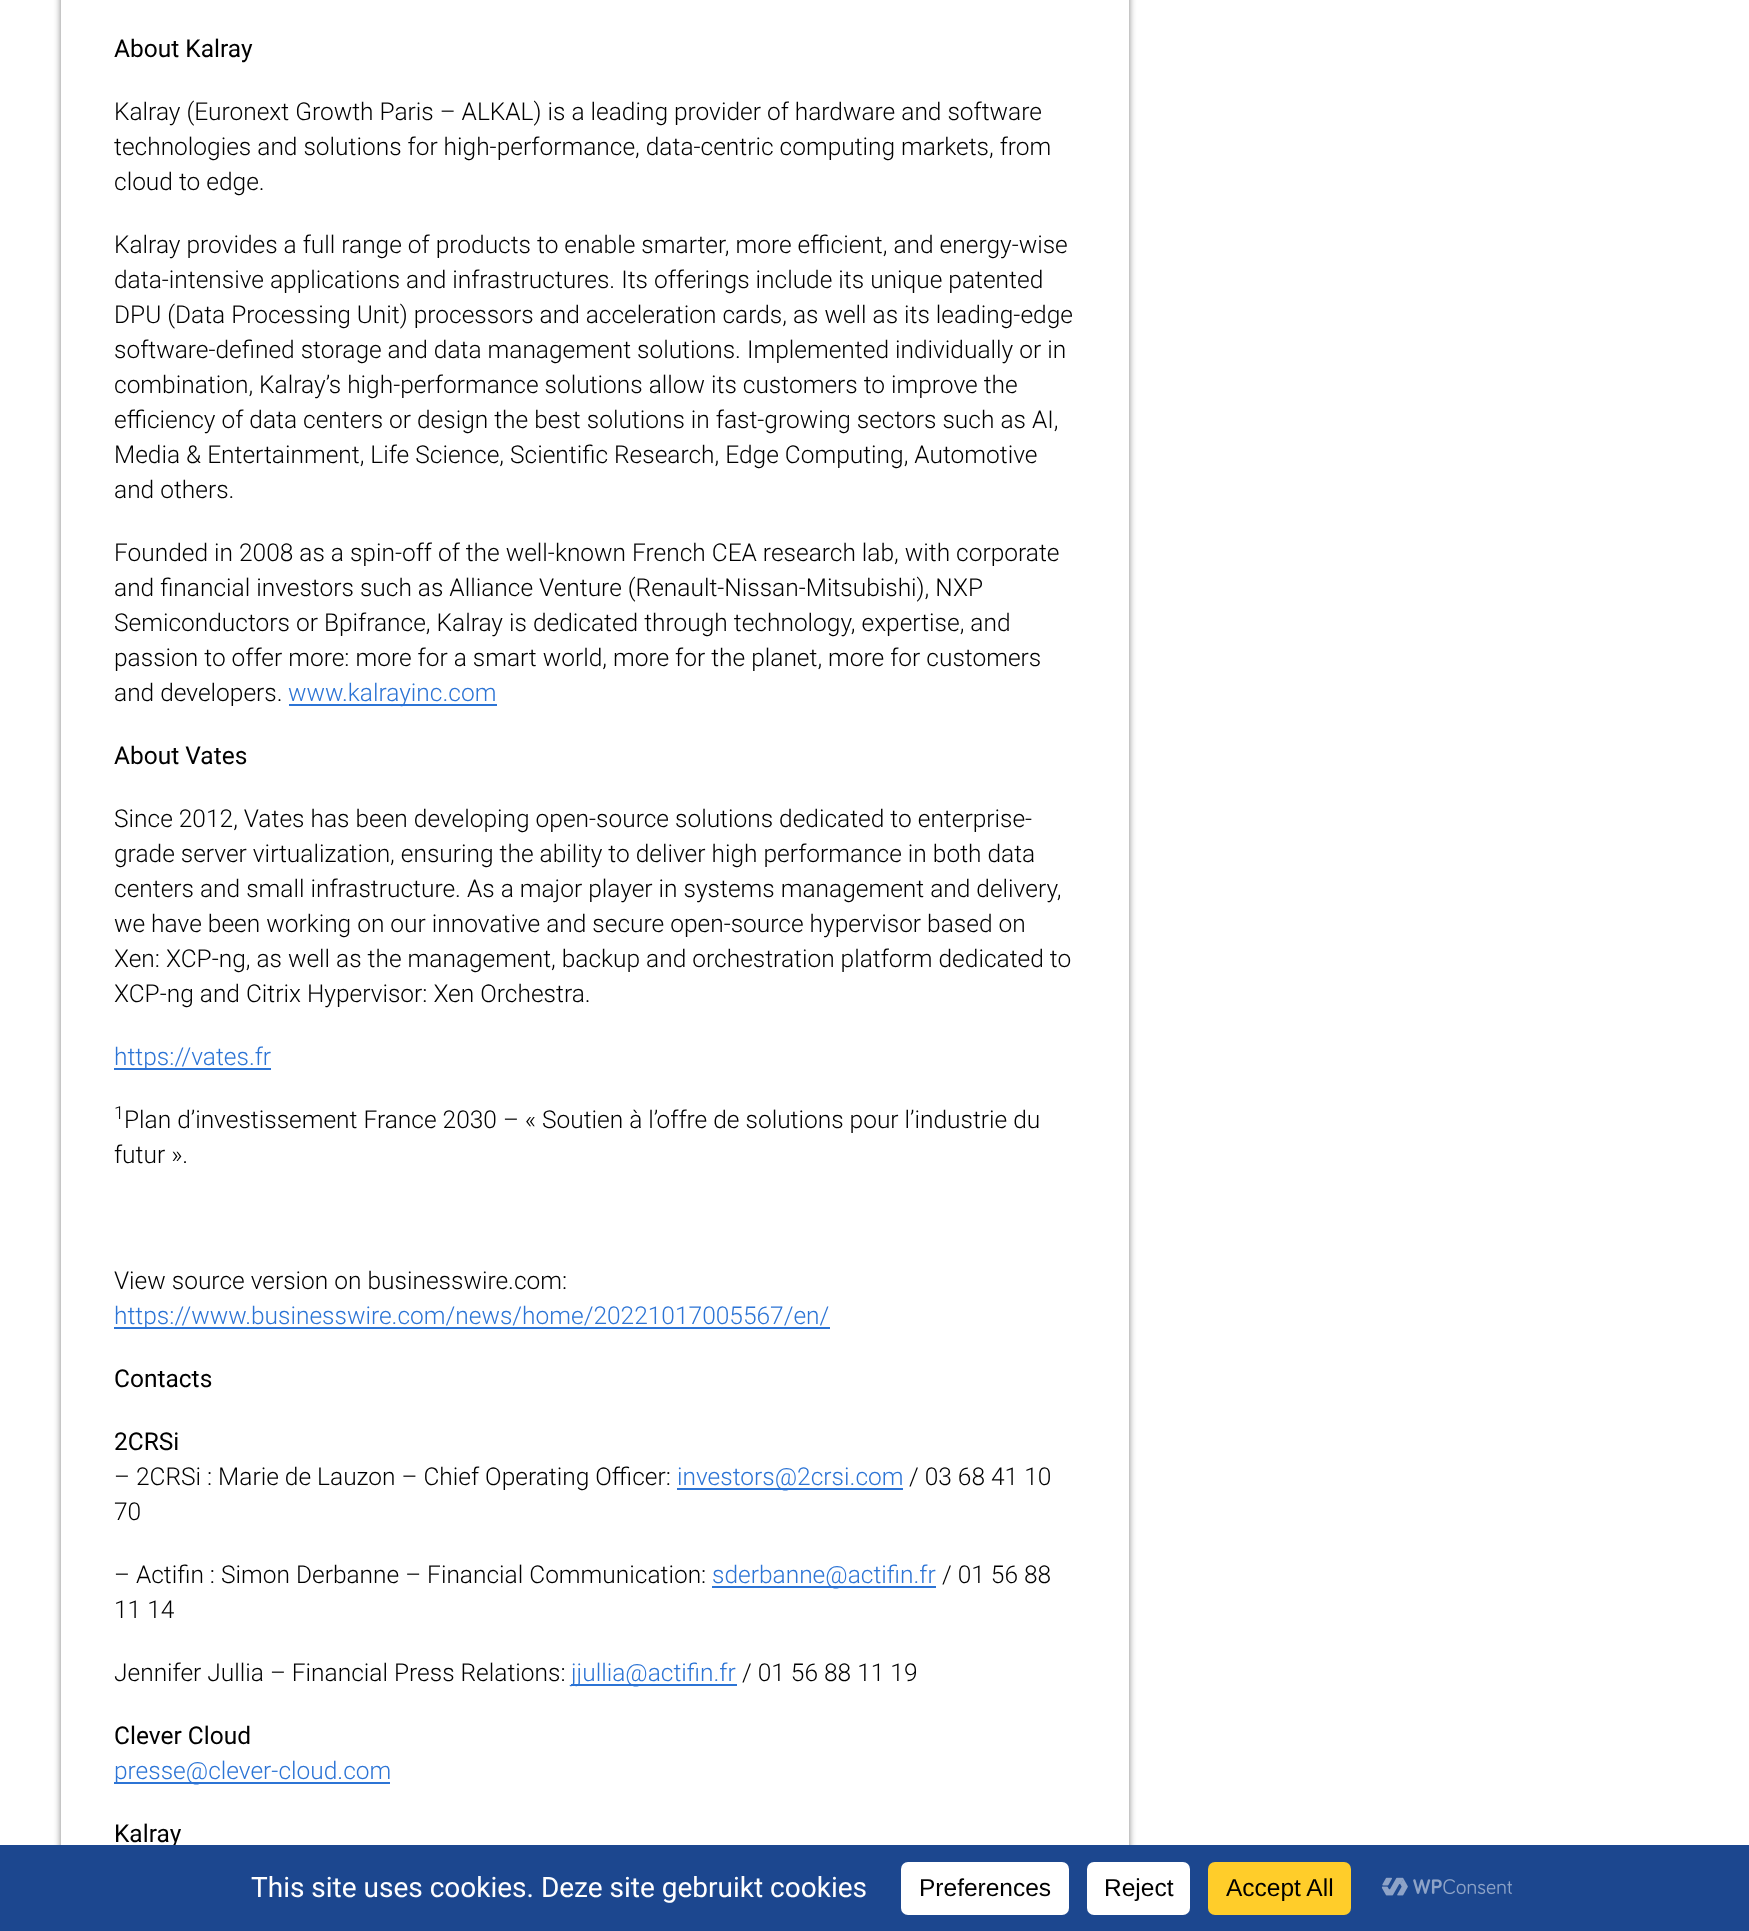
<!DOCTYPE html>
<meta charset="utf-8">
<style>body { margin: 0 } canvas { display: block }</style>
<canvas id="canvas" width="1749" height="1931"></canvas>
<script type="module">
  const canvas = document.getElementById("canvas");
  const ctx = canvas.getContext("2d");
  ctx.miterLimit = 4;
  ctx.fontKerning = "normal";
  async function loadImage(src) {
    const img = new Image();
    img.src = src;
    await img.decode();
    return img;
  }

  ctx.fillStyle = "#ffffff";
  ctx.fillRect(0, 0, 1749, 1931);
  ctx.fillStyle = "rgba(0, 0, 0, 0.5)";
  ctx.filter = "blur(3.5px)";
  ctx.beginPath();
  ctx.rect(61, -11, 1068, 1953);
  ctx.fill();
  ctx.filter = "none";
  ctx.fillStyle = "#ffffff";
  ctx.fillRect(61, 0, 1068, 1845);
  ctx.font = "24.5px Roboto";
  ctx.fillStyle = "#000000";
  ctx.fillText("About Kalray", 114, 57);
  ctx.font = "300 24.5px Roboto";
  ctx.fillText("Kalray (Euronext Growth Paris – ALKAL) is a leading provider of hardware and software", 114, 120);
  ctx.fillText("technologies and solutions for high-performance, data-centric computing markets, from", 114, 155);
  ctx.fillText("cloud to edge.", 114, 190);
  ctx.fillText("Kalray provides a full range of products to enable smarter, more efficient, and energy-wise", 114, 253);
  ctx.fillText("data-intensive applications and infrastructures. Its offerings include its unique patented", 114, 288);
  ctx.fillText("DPU (Data Processing Unit) processors and acceleration cards, as well as its leading-edge", 114, 323);
  ctx.fillText("software-defined storage and data management solutions. Implemented individually or in", 114, 358);
  ctx.fillText("combination, Kalray’s high-performance solutions allow its customers to improve the", 114, 393);
  ctx.fillText("efficiency of data centers or design the best solutions in fast-growing sectors such as AI,", 114, 428);
  ctx.fillText("Media & Entertainment, Life Science, Scientific Research, Edge Computing, Automotive", 114, 463);
  ctx.fillText("and others.", 114, 498);
  ctx.fillText("Founded in 2008 as a spin-off of the well-known French CEA research lab, with corporate", 114, 561);
  ctx.fillText("and financial investors such as Alliance Venture (Renault-Nissan-Mitsubishi), NXP", 114, 596);
  ctx.fillText("Semiconductors or Bpifrance, Kalray is dedicated through technology, expertise, and", 114, 631);
  ctx.fillText("passion to offer more: more for a smart world, more for the planet, more for customers", 114, 666);
  ctx.fillText("and developers.", 114, 701);
  ctx.fillStyle = "#2c74d5";
  ctx.fillRect(289, 704, 208, 2);
  ctx.fillText("www.kalrayinc.com", 288, 701);
  ctx.font = "24.5px Roboto";
  ctx.fillStyle = "#000000";
  ctx.fillText("About Vates", 114, 764);
  ctx.font = "300 24.5px Roboto";
  ctx.fillText("Since 2012, Vates has been developing open-source solutions dedicated to enterprise-", 114, 827);
  ctx.fillText("grade server virtualization, ensuring the ability to deliver high performance in both data", 114, 862);
  ctx.fillText("centers and small infrastructure. As a major player in systems management and delivery,", 114, 897);
  ctx.fillText("we have been working on our innovative and secure open-source hypervisor based on", 114, 932);
  ctx.fillText("Xen: XCP-ng, as well as the management, backup and orchestration platform dedicated to", 114, 967);
  ctx.fillText("XCP-ng and Citrix Hypervisor: Xen Orchestra.", 114, 1002);
  ctx.fillStyle = "#2c74d5";
  ctx.fillRect(114, 1068, 157, 2);
  ctx.fillText("https://vates.fr", 114, 1065);
  ctx.font = "300 18px Roboto";
  ctx.fillStyle = "#000000";
  ctx.fillText("1", 114, 1119);
  ctx.font = "300 24.5px Roboto";
  ctx.fillText("Plan d’investissement France 2030 – « Soutien à l’offre de solutions pour l’industrie du", 124, 1128);
  ctx.fillText("futur ».", 114, 1163);
  ctx.fillText("View source version on businesswire.com:", 114, 1289);
  ctx.fillStyle = "#2c74d5";
  ctx.fillRect(114, 1327, 716, 2);
  ctx.fillText("https://www.businesswire.com/news/home/20221017005567/en/", 114, 1324);
  ctx.font = "24.5px Roboto";
  ctx.fillStyle = "#000000";
  ctx.fillText("Contacts", 114, 1387);
  ctx.fillText("2CRSi", 114, 1450);
  ctx.font = "300 24.5px Roboto";
  ctx.fillText("– 2CRSi : Marie de Lauzon – Chief Operating Officer:", 114, 1485);
  ctx.fillStyle = "#2c74d5";
  ctx.fillRect(677, 1488, 226, 2);
  ctx.fillText("investors@2crsi.com", 677, 1485);
  ctx.fillStyle = "#000000";
  ctx.fillText("/ 03 68 41 10", 909, 1485);
  ctx.fillText("70", 114, 1520);
  ctx.fillText("– Actifin : Simon Derbanne – Financial Communication:", 114, 1583);
  ctx.fillStyle = "#2c74d5";
  ctx.fillRect(712, 1586, 224, 2);
  ctx.fillText("sderbanne@actifin.fr", 712, 1583);
  ctx.fillStyle = "#000000";
  ctx.fillText("/ 01 56 88", 942, 1583);
  ctx.fillText("11 14", 114, 1618);
  ctx.fillText("Jennifer Jullia – Financial Press Relations:", 114, 1681);
  ctx.fillStyle = "#2c74d5";
  ctx.fillRect(571, 1684, 166, 2);
  ctx.fillText("jjullia@actifin.fr", 571, 1681);
  ctx.fillStyle = "#000000";
  ctx.fillText("/ 01 56 88 11 19", 742, 1681);
  ctx.font = "24.5px Roboto";
  ctx.fillText("Clever Cloud", 114, 1744);
  ctx.fillStyle = "#2c74d5";
  ctx.fillRect(114, 1782, 276, 2);
  ctx.font = "300 24.5px Roboto";
  ctx.fillText("presse@clever-cloud.com", 114, 1779);
  ctx.font = "24.5px Roboto";
  ctx.fillStyle = "#000000";
  ctx.fillText("Kalray", 114, 1842);
  ctx.fillStyle = "#1c478f";
  ctx.fillRect(0, 1845, 1749, 86);
  ctx.font = "28px Roboto";
  ctx.fillStyle = "#ffffff";
  ctx.fillText("This site uses cookies. Deze site gebruikt cookies", 251, 1897);
  ctx.beginPath();
  ctx.roundRect(901, 1862, 168, 53, 7);
  ctx.fill();
  ctx.font = "24.5px Liberation Sans";
  ctx.fillStyle = "#000000";
  ctx.fillText("Preferences", 919, 1896);
  ctx.fillStyle = "#ffffff";
  ctx.beginPath();
  ctx.roundRect(1087, 1862, 103, 53, 7);
  ctx.fill();
  ctx.fillStyle = "#000000";
  ctx.fillText("Reject", 1104, 1896);
  ctx.fillStyle = "#ffcd2a";
  ctx.beginPath();
  ctx.roundRect(1208, 1862, 143, 53, 7);
  ctx.fill();
  ctx.fillStyle = "#000000";
  ctx.fillText("Accept All", 1226, 1896);
  ctx.drawImage(await loadImage("img1.png"), 1381, 1877, 131, 19);
</script>
